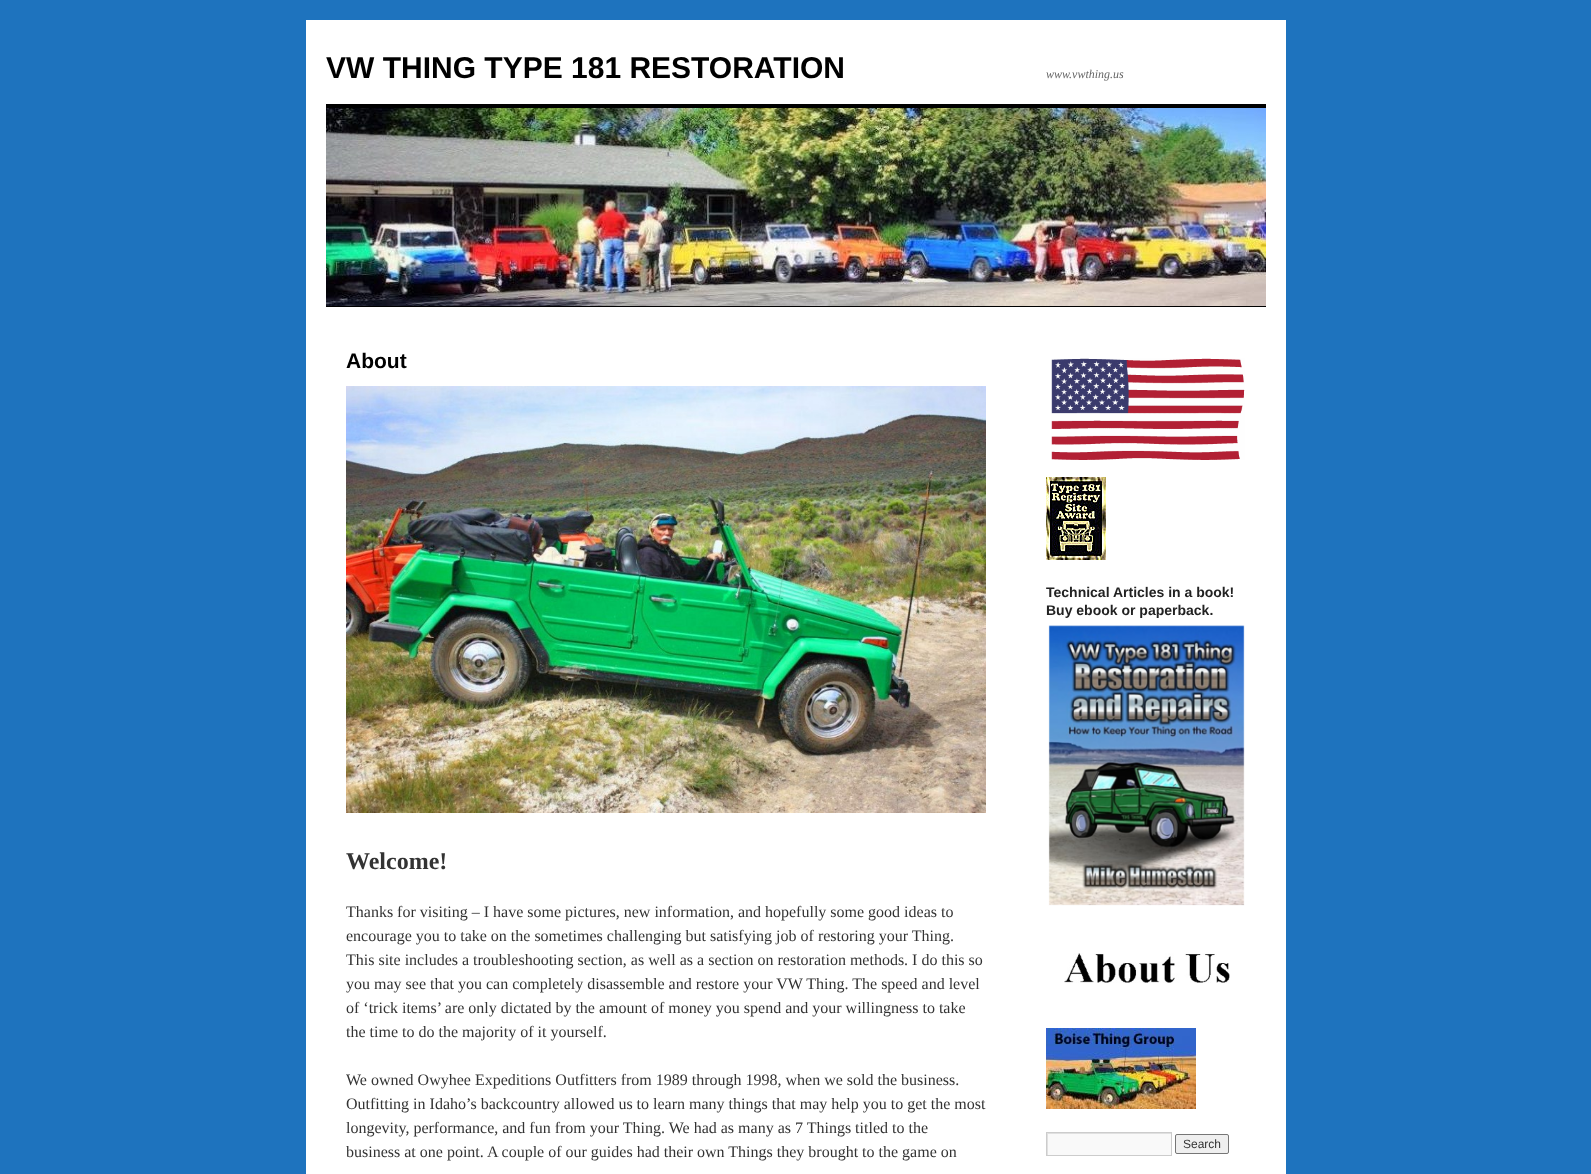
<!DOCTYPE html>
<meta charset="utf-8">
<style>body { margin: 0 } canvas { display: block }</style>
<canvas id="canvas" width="1591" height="1174"></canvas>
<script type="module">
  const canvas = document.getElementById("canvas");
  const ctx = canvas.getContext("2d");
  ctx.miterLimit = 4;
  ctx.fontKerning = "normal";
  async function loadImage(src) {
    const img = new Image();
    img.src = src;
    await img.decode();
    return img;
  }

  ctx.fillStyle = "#1e73be";
  ctx.fillRect(0, 0, 1591, 1174);
  ctx.fillStyle = "#ffffff";
  ctx.fillRect(306, 20, 980, 1154);
  ctx.font = "bold 30px Liberation Sans";
  ctx.fillStyle = "#000000";
  ctx.fillText("VW THING TYPE 181 RESTORATION", 326, 78);
  ctx.font = "italic 12px Liberation Serif";
  ctx.fillStyle = "#666666";
  ctx.fillText("www.vwthing.us", 1046, 78);
  ctx.fillStyle = "#000000";
  ctx.fillRect(326, 104, 940, 4);
  ctx.fillRect(326, 306, 940, 1);
  ctx.drawImage(await loadImage("img1.png"), 326, 108, 940, 198);
  ctx.font = "bold 21px Liberation Sans";
  ctx.fillText("About", 346, 368);
  ctx.drawImage(await loadImage("img2.png"), 346, 386, 640, 427);
  ctx.font = "bold 24px Liberation Serif";
  ctx.fillStyle = "#333333";
  ctx.fillText("Welcome!", 346, 869);
  ctx.font = "16px Liberation Serif";
  ctx.fillText("Thanks for visiting – I have some pictures, new information, and hopefully some good ideas to", 346, 917);
  ctx.fillText("encourage you to take on the sometimes challenging but satisfying job of restoring your Thing.", 346, 941);
  ctx.fillText("This site includes a troubleshooting section, as well as a section on restoration methods. I do this so", 346, 965);
  ctx.fillText("you may see that you can completely disassemble and restore your VW Thing. The speed and level", 346, 989);
  ctx.fillText("of ‘trick items’ are only dictated by the amount of money you spend and your willingness to take", 346, 1013);
  ctx.fillText("the time to do the majority of it yourself.", 346, 1037);
  ctx.fillText("We owned Owyhee Expeditions Outfitters from 1989 through 1998, when we sold the business.", 346, 1085);
  ctx.fillText("Outfitting in Idaho’s backcountry allowed us to learn many things that may help you to get the most", 346, 1109);
  ctx.fillText("longevity, performance, and fun from your Thing. We had as many as 7 Things titled to the", 346, 1133);
  ctx.fillText("business at one point. A couple of our guides had their own Things they brought to the game on", 346, 1157);
  ctx.drawImage(await loadImage("img3.png"), 1051, 358, 194, 102);
  ctx.drawImage(await loadImage("img4.png"), 1046, 477, 60, 83);
  ctx.font = "bold 14px Liberation Sans";
  ctx.fillStyle = "#222222";
  ctx.fillText("Technical Articles in a book!", 1046, 597);
  ctx.fillText("Buy ebook or paperback.", 1046, 615);
  ctx.drawImage(await loadImage("img5.png"), 1048, 625, 197, 281);
  ctx.drawImage(await loadImage("img6.png"), 1064, 953, 166, 30);
  ctx.drawImage(await loadImage("img7.png"), 1046, 1028, 150, 81);
  ctx.fillStyle = "#f9f9f9";
  ctx.fillRect(1048, 1134, 123, 21);
  ctx.save();
  ctx.beginPath();
  ctx.rect(1047, 1133, 124, 22);
  ctx.clip();
  ctx.fillStyle = "#e0e0e0";
  ctx.beginPath();
  ctx.moveTo(948, 1034);
  ctx.lineTo(1270, 1034);
  ctx.lineTo(1270, 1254);
  ctx.lineTo(948, 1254);
  ctx.closePath();
  ctx.moveTo(1048, 1134);
  ctx.lineTo(1172, 1134);
  ctx.lineTo(1172, 1156);
  ctx.lineTo(1048, 1156);
  ctx.closePath();
  ctx.fill("evenodd");
  ctx.restore();
  ctx.strokeStyle = "#cccccc";
  ctx.strokeRect(1046.5, 1132.5, 125, 23);
  ctx.fillStyle = "#efefef";
  ctx.beginPath();
  ctx.roundRect(1175.5, 1134.5, 53, 19, 1.5);
  ctx.fill();
  ctx.strokeStyle = "#767676";
  ctx.stroke();
  ctx.font = "12px Liberation Sans";
  ctx.fillStyle = "#333333";
  ctx.fillText("Search", 1183, 1148);
</script>
